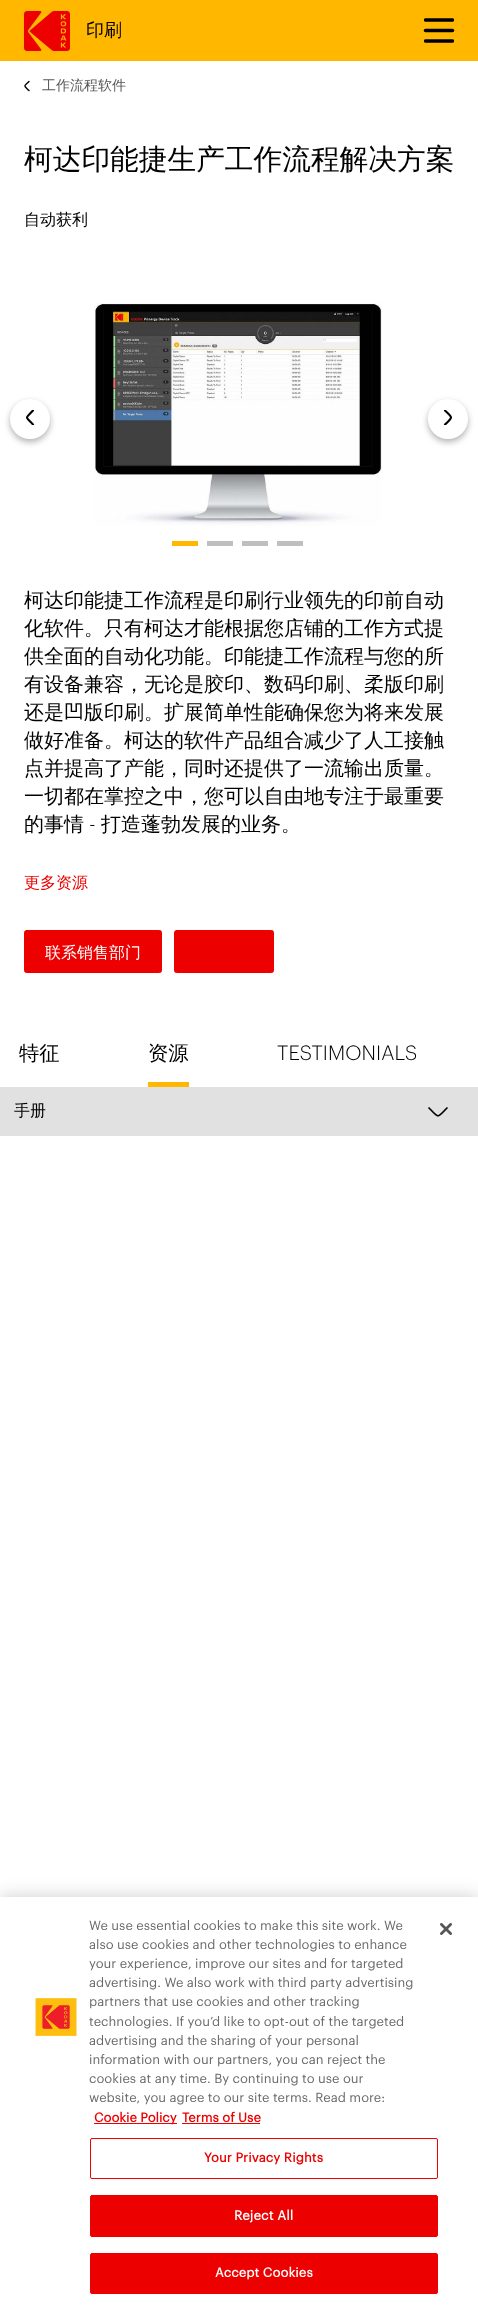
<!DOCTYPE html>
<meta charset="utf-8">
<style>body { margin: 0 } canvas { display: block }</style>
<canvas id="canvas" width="478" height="2310"></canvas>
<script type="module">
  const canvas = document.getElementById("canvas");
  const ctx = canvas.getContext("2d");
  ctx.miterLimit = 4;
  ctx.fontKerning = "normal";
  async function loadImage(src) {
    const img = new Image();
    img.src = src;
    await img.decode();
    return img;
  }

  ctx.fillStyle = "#ffffff";
  ctx.fillRect(0, 0, 478, 2310);
  ctx.fillStyle = "#ffb700";
  ctx.fillRect(0, 0, 478, 61);
  ctx.drawImage(await loadImage("img1.png"), 24, 11, 46, 40);
  ctx.font = "500 18px WenQuanYi Zen Hei";
  ctx.fillStyle = "#000000";
  ctx.fillText("印刷", 86, 36);
  ctx.save();
  ctx.beginPath();
  ctx.rect(424, 18, 30, 25);
  ctx.clip();
  ctx.beginPath();
  ctx.moveTo(452.5, 20);
  ctx.lineTo(425.5, 20);
  ctx.strokeStyle = "#000000";
  ctx.lineWidth = 3.5;
  ctx.lineCap = "round";
  ctx.stroke();
  ctx.restore();
  ctx.beginPath();
  ctx.moveTo(452.5, 30.5);
  ctx.lineTo(425.5, 30.5);
  ctx.strokeStyle = "#000000";
  ctx.lineWidth = 3.5;
  ctx.lineCap = "round";
  ctx.stroke();
  ctx.save();
  ctx.beginPath();
  ctx.rect(424, 18, 30, 25);
  ctx.clip();
  ctx.beginPath();
  ctx.moveTo(452.5, 41);
  ctx.lineTo(425.5, 41);
  ctx.stroke();
  ctx.restore();
  ctx.beginPath();
  ctx.moveTo(29, 81.5);
  ctx.bezierCurveTo(23.5, 87, 23.5, 85, 29, 90.5);
  ctx.lineWidth = 1.4;
  ctx.lineJoin = "round";
  ctx.stroke();
  ctx.font = "500 14px WenQuanYi Zen Hei";
  ctx.fillStyle = "#565656";
  ctx.fillText("工作流程软件", 42, 90);
  ctx.font = "500 28.7px WenQuanYi Zen Hei";
  ctx.fillStyle = "#000000";
  ctx.fillText("柯达印能捷生产工作流程解决方案", 24, 169);
  ctx.font = "500 16px WenQuanYi Zen Hei";
  ctx.fillText("自动获利", 24, 225);
  ctx.drawImage(await loadImage("img2.png"), 94, 303, 288, 223);
  ctx.fillStyle = "rgba(0, 0, 0, 0.3)";
  ctx.filter = "blur(3px)";
  ctx.beginPath();
  ctx.roundRect(10, 402, 40, 40, 20);
  ctx.fill();
  ctx.filter = "none";
  ctx.fillStyle = "#ffffff";
  ctx.beginPath();
  ctx.arc(30, 419, 20, 0, Math.PI * 2);
  ctx.fill();
  ctx.save();
  ctx.beginPath();
  ctx.rect(25, 410, 10, 15);
  ctx.clip();
  ctx.beginPath();
  ctx.moveTo(33, 410.5);
  ctx.bezierCurveTo(25, 419, 25, 416, 33, 424.5);
  ctx.lineWidth = 2.1;
  ctx.stroke();
  ctx.restore();
  ctx.fillStyle = "rgba(0, 0, 0, 0.3)";
  ctx.filter = "blur(3px)";
  ctx.beginPath();
  ctx.roundRect(428, 402, 40, 40, 20);
  ctx.fill();
  ctx.filter = "none";
  ctx.fillStyle = "#ffffff";
  ctx.beginPath();
  ctx.arc(448, 419, 20, 0, Math.PI * 2);
  ctx.fill();
  ctx.save();
  ctx.beginPath();
  ctx.rect(443, 410, 10, 15);
  ctx.clip();
  ctx.beginPath();
  ctx.moveTo(445, 424.5);
  ctx.bezierCurveTo(453, 416.5, 453, 418.5, 445, 410.5);
  ctx.lineWidth = 2.1;
  ctx.stroke();
  ctx.restore();
  ctx.fillStyle = "#ffb700";
  ctx.fillRect(172, 541, 26, 5);
  ctx.fillStyle = "#bfbfbf";
  ctx.fillRect(207, 541, 26, 5);
  ctx.fillRect(242, 541, 26, 5);
  ctx.fillRect(277, 541, 26, 5);
  ctx.font = "500 20px WenQuanYi Zen Hei";
  ctx.fillStyle = "#000000";
  ctx.fillText("柯达印能捷工作流程是印刷行业领先的印前自动", 24, 607);
  ctx.fillText("化软件。只有柯达才能根据您店铺的工作方式提", 24, 635);
  ctx.fillText("供全面的自动化功能。印能捷工作流程与您的所", 24, 663);
  ctx.fillText("有设备兼容，无论是胶印、数码印刷、柔版印刷", 24, 691);
  ctx.fillText("还是凹版印刷。扩展简单性能确保您为将来发展", 24, 719);
  ctx.fillText("做好准备。柯达的软件产品组合减少了人工接触", 24, 747);
  ctx.fillText("点并提高了产能，同时还提供了一流输出质量。", 24, 775);
  ctx.fillText("一切都在掌控之中，您可以自由地专注于最重要", 24, 803);
  ctx.fillText("的事情", 24, 831);
  ctx.font = "300 20px Graphik";
  ctx.fillText("-", 89, 831);
  ctx.font = "500 20px WenQuanYi Zen Hei";
  ctx.fillText("打造蓬勃发展的业务。", 101, 831);
  ctx.font = "500 16px WenQuanYi Zen Hei";
  ctx.fillStyle = "#ed0000";
  ctx.fillText("更多资源", 24, 888);
  ctx.beginPath();
  ctx.roundRect(24.5, 930.5, 137, 42, 2);
  ctx.fill();
  ctx.strokeStyle = "#ed0000";
  ctx.lineWidth = 1;
  ctx.lineJoin = "miter";
  ctx.stroke();
  ctx.fillStyle = "#ffffff";
  ctx.fillText("联系销售部门", 45, 958);
  ctx.fillStyle = "#ed0000";
  ctx.beginPath();
  ctx.roundRect(174.5, 930.5, 99, 42, 2);
  ctx.fill();
  ctx.stroke();
  ctx.font = "500 20.25px WenQuanYi Zen Hei";
  ctx.fillStyle = "#000000";
  ctx.fillText("特征", 19, 1060);
  ctx.fillStyle = "#ffb700";
  ctx.fillRect(148, 1082, 41, 5);
  ctx.fillStyle = "#000000";
  ctx.fillText("资源", 148, 1060);
  ctx.font = "300 20.25px Graphik";
  ctx.fillText("TESTIMONIALS", 277, 1060);
  ctx.fillStyle = "#e1e1e1";
  ctx.fillRect(0, 1087, 478, 49);
  ctx.font = "500 16px WenQuanYi Zen Hei";
  ctx.fillStyle = "#000000";
  ctx.fillText("手册", 14, 1116);
  ctx.beginPath();
  ctx.moveTo(429, 1108);
  ctx.bezierCurveTo(439.5, 1118.5, 436.5, 1118.5, 447, 1108);
  ctx.strokeStyle = "#000000";
  ctx.lineWidth = 1.7;
  ctx.lineJoin = "round";
  ctx.stroke();
  ctx.fillStyle = "rgba(0, 0, 0, 0.2)";
  ctx.filter = "blur(9px)";
  ctx.beginPath();
  ctx.rect(0, 1897, 478, 413);
  ctx.fill();
  ctx.filter = "none";
  ctx.fillStyle = "#ffffff";
  ctx.fillRect(0, 1897, 478, 413);
  ctx.drawImage(await loadImage("img3.png"), 35, 1998, 42, 38);
  ctx.font = "12.8px Graphik";
  ctx.fillStyle = "#696969";
  ctx.fillText("We use essential cookies to make this site work. We", 89, 1930);
  ctx.fillText("also use cookies and other technologies to enhance", 89, 1949);
  ctx.fillText("your experience, improve our sites and for targeted", 89, 1968);
  ctx.fillText("advertising. We also work with third party advertising", 89, 1987);
  ctx.fillText("partners that use cookies and other tracking", 89, 2006);
  ctx.fillText("technologies. If you’d like to opt-out of the targeted", 89, 2026);
  ctx.fillText("advertising and the sharing of your personal", 89, 2045);
  ctx.fillText("information with our partners, you can reject the", 89, 2064);
  ctx.fillText("cookies at any time. By continuing to use our", 89, 2083);
  ctx.fillText("website, you agree to our site terms. Read more:", 89, 2102);
  ctx.fillStyle = "#ed0000";
  ctx.fillRect(94, 2123, 83, 1);
  ctx.font = "bold 12.8px Graphik";
  ctx.fillText("Cookie Policy", 94, 2122);
  ctx.fillText("Terms of Use", 182, 2122);
  ctx.fillRect(182, 2123, 78, 1);
  ctx.beginPath();
  ctx.roundRect(90.5, 2138.5, 347, 40, 1.5);
  ctx.strokeStyle = "#ed0000";
  ctx.lineWidth = 1;
  ctx.lineJoin = "miter";
  ctx.stroke();
  ctx.letterSpacing = "0.1px";
  ctx.fillText("Your Privacy Rights", 204, 2162);
  ctx.beginPath();
  ctx.roundRect(90.5, 2195.5, 347, 41, 1.5);
  ctx.fill();
  ctx.stroke();
  ctx.font = "bold 13px Graphik";
  ctx.fillStyle = "#ffffff";
  ctx.fillText("Reject All", 234, 2220);
  ctx.fillStyle = "#ed0000";
  ctx.beginPath();
  ctx.roundRect(90.5, 2253.5, 347, 40, 1.5);
  ctx.fill();
  ctx.stroke();
  ctx.font = "bold 12.8px Graphik";
  ctx.fillStyle = "#ffffff";
  ctx.fillText("Accept Cookies", 215, 2277);
  ctx.drawImage(await loadImage("img4.png"), 440, 1923, 12, 12);
</script>
